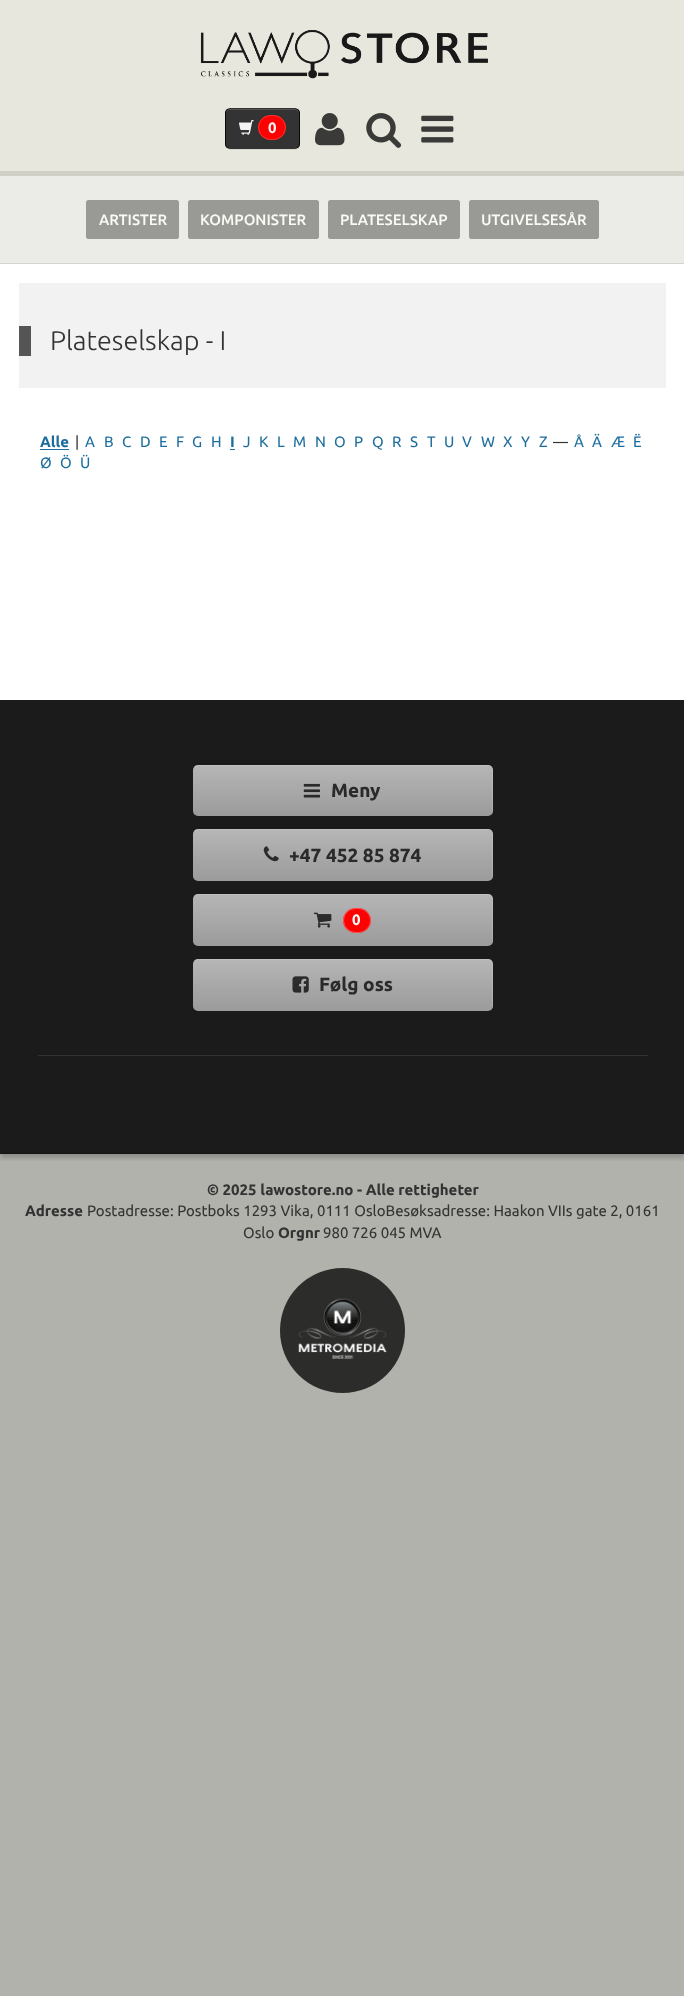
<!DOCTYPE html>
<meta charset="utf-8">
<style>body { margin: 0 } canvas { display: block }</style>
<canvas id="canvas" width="684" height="1996"></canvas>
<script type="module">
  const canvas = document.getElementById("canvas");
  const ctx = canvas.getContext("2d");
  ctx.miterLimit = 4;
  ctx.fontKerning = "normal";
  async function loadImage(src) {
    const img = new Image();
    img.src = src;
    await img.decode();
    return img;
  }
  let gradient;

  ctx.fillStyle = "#b1b2ac";
  ctx.fillRect(0, 0, 684, 1996);
  ctx.fillStyle = "#e7e7dd";
  ctx.fillRect(0, 0, 684, 171);
  ctx.fillStyle = "#d0d0c7";
  ctx.fillRect(0, 171, 684, 5);
  ctx.drawImage(await loadImage("img1.png"), 200, 30, 288, 49);
  ctx.fillStyle = "rgba(0, 0, 0, 0.07)";
  ctx.filter = "blur(0.5px)";
  ctx.beginPath();
  ctx.roundRect(225, 109, 75, 41, 5);
  ctx.fill();
  ctx.filter = "none";
  ctx.fillStyle = "#ffffff";
  ctx.beginPath();
  ctx.roundRect(225, 108, 75, 41, 5);
  ctx.fill();
  ctx.save();
  ctx.beginPath();
  ctx.roundRect(225, 108, 75, 41, 5);
  ctx.clip();
  ctx.fillStyle = "rgba(0, 0, 0, 0.8)";
  ctx.fillRect(225, 109, 75, 39);
  ctx.restore();
  ctx.fillStyle = "rgba(255, 255, 255, 0.15)";
  ctx.beginPath();
  ctx.moveTo(230, 110);
  ctx.lineTo(295, 110);
  ctx.bezierCurveTo(297, 110, 299, 112, 299, 114);
  ctx.bezierCurveTo(299, 106, 289, 109, 284, 109);
  ctx.lineTo(241, 109);
  ctx.bezierCurveTo(236, 109, 226, 106, 226, 114);
  ctx.bezierCurveTo(226, 112, 228, 110, 230, 110);
  ctx.closePath();
  ctx.fill();
  ctx.beginPath();
  ctx.roundRect(225.5, 108.5, 74, 40, 4.5);
  ctx.strokeStyle = "rgba(0, 0, 0, 0.8)";
  ctx.stroke();
  ctx.drawImage(await loadImage("img2.png"), 239, 120, 15, 15);
  ctx.fillStyle = "#fd0101";
  ctx.beginPath();
  ctx.roundRect(258, 115, 28, 25, 12.5);
  ctx.fill();
  ctx.beginPath();
  ctx.roundRect(258.5, 115.5, 27, 24, 12);
  ctx.strokeStyle = "rgba(255, 255, 255, 0.2)";
  ctx.stroke();
  ctx.font = "bold 15px Ubuntu";
  ctx.fillStyle = "#fff2f2";
  ctx.fillText("0", 268, 133);
  ctx.drawImage(await loadImage("img3.png"), 315, 113, 30, 33);
  ctx.drawImage(await loadImage("img4.png"), 366, 113, 35, 35);
  ctx.drawImage(await loadImage("img5.png"), 421, 115, 33, 28);
  ctx.fillStyle = "#ebece7";
  ctx.fillRect(0, 176, 684, 87);
  ctx.fillStyle = "#d4d4d0";
  ctx.fillRect(0, 263, 684, 1);
  ctx.fillStyle = "#999996";
  ctx.beginPath();
  ctx.roundRect(86, 200, 93, 39, 2.5);
  ctx.fill();
  ctx.font = "500 15px Ubuntu";
  ctx.fillStyle = "#fafaf4";
  ctx.fillText("ARTISTER", 99, 225);
  ctx.fillStyle = "#999996";
  ctx.beginPath();
  ctx.roundRect(188, 200, 131, 39, 2.5);
  ctx.fill();
  ctx.fillStyle = "#fafaf4";
  ctx.fillText("KOMPONISTER", 200, 225);
  ctx.fillStyle = "#999996";
  ctx.beginPath();
  ctx.roundRect(328, 200, 132, 39, 2.5);
  ctx.fill();
  ctx.fillStyle = "#fafaf4";
  ctx.fillText("PLATESELSKAP", 340, 225);
  ctx.fillStyle = "#999996";
  ctx.beginPath();
  ctx.roundRect(469, 200, 130, 39, 2.5);
  ctx.fill();
  ctx.fillStyle = "#fafaf4";
  ctx.fillText("UTGIVELSESÅR", 481, 225);
  ctx.fillStyle = "#ffffff";
  ctx.fillRect(0, 264, 684, 436);
  ctx.fillStyle = "#f2f2f2";
  ctx.fillRect(19, 283, 647, 105);
  ctx.fillStyle = "#555555";
  ctx.fillRect(19, 326, 12, 30);
  ctx.font = "300 27px Ubuntu";
  ctx.fillStyle = "#333333";
  ctx.fillText("Plateselskap - I", 50, 350);
  ctx.font = "bold 15px Ubuntu";
  ctx.fillStyle = "#1d6e9e";
  ctx.fillText("Alle", 40, 447);
  ctx.fillRect(40, 449, 29, 1);
  ctx.font = "15px Ubuntu";
  ctx.fillStyle = "#333333";
  ctx.fillText("|", 75, 447);
  ctx.fillStyle = "#1d6e9e";
  ctx.fillText("A", 85, 447);
  ctx.fillText("B", 104, 447);
  ctx.fillText("C", 122, 447);
  ctx.fillText("D", 140, 447);
  ctx.fillText("E", 159, 447);
  ctx.fillText("F", 176, 447);
  ctx.fillText("G", 192, 447);
  ctx.fillText("H", 211, 447);
  ctx.font = "bold 15px Ubuntu";
  ctx.fillText("I", 230, 447);
  ctx.fillRect(230, 449, 5, 1);
  ctx.font = "15px Ubuntu";
  ctx.fillText("J", 243, 447);
  ctx.fillText("K", 259, 447);
  ctx.fillText("L", 277, 447);
  ctx.fillText("M", 293, 447);
  ctx.fillText("N", 315, 447);
  ctx.fillText("O", 334, 447);
  ctx.fillText("P", 354, 447);
  ctx.fillText("Q", 372, 447);
  ctx.fillText("R", 392, 447);
  ctx.fillText("S", 410, 447);
  ctx.fillText("T", 427, 447);
  ctx.fillText("U", 444, 447);
  ctx.fillText("V", 462, 447);
  ctx.fillText("W", 481, 447);
  ctx.fillText("X", 503, 447);
  ctx.fillText("Y", 521, 447);
  ctx.fillText("Z", 539, 447);
  ctx.fillStyle = "#333333";
  ctx.fillText("—", 553, 447);
  ctx.fillStyle = "#1d6e9e";
  ctx.fillText("Å", 574, 447);
  ctx.fillText("Ä", 592, 447);
  ctx.fillText("Æ", 611, 447);
  ctx.fillText("Ë", 633, 447);
  ctx.fillText("Ø", 40, 468);
  ctx.fillText("Ö", 60, 468);
  ctx.fillText("Ü", 80, 468);
  ctx.fillStyle = "#1a1b1a";
  ctx.fillRect(0, 700, 684, 349);
  gradient = ctx.createLinearGradient(343, 765, 343, 816);
  gradient.addColorStop(0, "#b6b6b6");
  gradient.addColorStop(1, "#9b9b9b");
  ctx.fillStyle = gradient;
  ctx.beginPath();
  ctx.roundRect(193, 765, 300, 51, 5);
  ctx.fill();
  ctx.fillStyle = "rgba(255, 255, 255, 0.15)";
  ctx.beginPath();
  ctx.moveTo(198, 766);
  ctx.lineTo(488, 766);
  ctx.bezierCurveTo(490, 766, 492, 768, 492, 771);
  ctx.lineTo(492, 812);
  ctx.lineTo(492, 815);
  ctx.bezierCurveTo(492, 814, 493, 812, 493, 811);
  ctx.lineTo(493, 770);
  ctx.bezierCurveTo(493, 767, 491, 765, 488, 765);
  ctx.lineTo(198, 765);
  ctx.bezierCurveTo(196, 765, 194, 766, 194, 768);
  ctx.bezierCurveTo(195, 767, 196, 766, 198, 766);
  ctx.closePath();
  ctx.fill();
  ctx.drawImage(await loadImage("img6.png"), 303, 783, 17, 15);
  ctx.font = "bold 19px Ubuntu";
  ctx.fillStyle = "#2a2a2a";
  ctx.fillText("Meny", 331, 797);
  gradient = ctx.createLinearGradient(343, 829, 343, 881);
  gradient.addColorStop(0, "#b6b6b6");
  gradient.addColorStop(1, "#9b9b9b");
  ctx.fillStyle = gradient;
  ctx.beginPath();
  ctx.roundRect(193, 829, 300, 52, 5);
  ctx.fill();
  ctx.fillStyle = "rgba(255, 255, 255, 0.15)";
  ctx.beginPath();
  ctx.moveTo(198, 830);
  ctx.lineTo(488, 830);
  ctx.bezierCurveTo(490, 830, 492, 832, 492, 835);
  ctx.lineTo(492, 879);
  ctx.bezierCurveTo(493, 878, 493, 877, 493, 876);
  ctx.lineTo(493, 834);
  ctx.bezierCurveTo(493, 831, 491, 829, 488, 829);
  ctx.lineTo(198, 829);
  ctx.bezierCurveTo(196, 829, 194, 830, 194, 832);
  ctx.bezierCurveTo(195, 831, 196, 830, 198, 830);
  ctx.closePath();
  ctx.fill();
  ctx.drawImage(await loadImage("img7.png"), 263, 846, 16, 16);
  ctx.fillStyle = "#2a2a2a";
  ctx.fillText("+47 452 85 874", 289, 862);
  gradient = ctx.createLinearGradient(343, 894, 343, 946);
  gradient.addColorStop(0, "#b6b6b6");
  gradient.addColorStop(1, "#9b9b9b");
  ctx.fillStyle = gradient;
  ctx.beginPath();
  ctx.roundRect(193, 894, 300, 52, 5);
  ctx.fill();
  ctx.fillStyle = "rgba(255, 255, 255, 0.15)";
  ctx.beginPath();
  ctx.moveTo(198, 895);
  ctx.lineTo(488, 895);
  ctx.bezierCurveTo(490, 895, 492, 897, 492, 900);
  ctx.lineTo(492, 942);
  ctx.lineTo(492, 945);
  ctx.bezierCurveTo(492, 944, 493, 942, 493, 941);
  ctx.lineTo(493, 899);
  ctx.bezierCurveTo(493, 896, 491, 894, 488, 894);
  ctx.lineTo(198, 894);
  ctx.bezierCurveTo(196, 894, 194, 895, 194, 897);
  ctx.bezierCurveTo(195, 896, 196, 895, 198, 895);
  ctx.closePath();
  ctx.fill();
  ctx.drawImage(await loadImage("img8.png"), 313, 912, 19, 16);
  ctx.fillStyle = "rgba(255, 0, 0, 0.99)";
  ctx.beginPath();
  ctx.roundRect(343, 908, 28, 25, 12.5);
  ctx.fill();
  ctx.beginPath();
  ctx.roundRect(343.5, 908.5, 27, 24, 12);
  ctx.strokeStyle = "rgba(255, 255, 255, 0.3)";
  ctx.stroke();
  ctx.font = "bold 15px Ubuntu";
  ctx.fillStyle = "#ffffff";
  ctx.fillText("0", 352, 925);
  gradient = ctx.createLinearGradient(343, 959, 343, 1011);
  gradient.addColorStop(0, "#b6b6b6");
  gradient.addColorStop(1, "#9b9b9b");
  ctx.fillStyle = gradient;
  ctx.beginPath();
  ctx.roundRect(193, 959, 300, 52, 5);
  ctx.fill();
  ctx.fillStyle = "rgba(255, 255, 255, 0.15)";
  ctx.beginPath();
  ctx.moveTo(198, 960);
  ctx.lineTo(488, 960);
  ctx.bezierCurveTo(490, 960, 492, 962, 492, 965);
  ctx.lineTo(492, 1009);
  ctx.bezierCurveTo(493, 1008, 493, 1007, 493, 1006);
  ctx.lineTo(493, 964);
  ctx.bezierCurveTo(493, 961, 491, 959, 488, 959);
  ctx.lineTo(198, 959);
  ctx.bezierCurveTo(196, 959, 194, 960, 194, 962);
  ctx.bezierCurveTo(195, 961, 196, 960, 198, 960);
  ctx.closePath();
  ctx.fill();
  ctx.drawImage(await loadImage("img9.png"), 292, 976, 17, 17);
  ctx.font = "bold 19px Ubuntu";
  ctx.fillStyle = "#2a2a2a";
  ctx.fillText("Følg oss", 319, 991);
  ctx.save();
  ctx.beginPath();
  ctx.rect(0, 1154, 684, 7);
  ctx.clip();
  ctx.fillStyle = "rgba(0, 0, 0, 0.2)";
  ctx.filter = "blur(2.5px)";
  ctx.beginPath();
  ctx.rect(0, 1053, 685, 105);
  ctx.fill();
  ctx.filter = "none";
  ctx.restore();
  ctx.fillStyle = "rgba(0, 0, 0, 0.85)";
  ctx.fillRect(0, 1049, 684, 104);
  ctx.fillStyle = "#141414";
  ctx.fillRect(0, 1153, 684, 1);
  ctx.fillStyle = "#313231";
  ctx.fillRect(38, 1055, 610, 1);
  ctx.font = "bold 15px Ubuntu";
  ctx.fillStyle = "#333333";
  ctx.fillText("© 2025 lawostore.no - Alle rettigheter", 207, 1195);
  ctx.fillText("Adresse", 25, 1216);
  ctx.font = "15px Ubuntu";
  ctx.fillText("Postadresse: Postboks 1293 Vika, 0111 OsloBesøksadresse: Haakon VIIs gate 2, 0161", 87, 1216);
  ctx.fillText("Oslo", 243, 1238);
  ctx.font = "bold 15px Ubuntu";
  ctx.fillText("Orgnr", 278, 1238);
  ctx.font = "15px Ubuntu";
  ctx.fillText("980 726 045 MVA", 323, 1238);
  ctx.fillStyle = "#2c2d2b";
  ctx.beginPath();
  ctx.arc(342.5, 1330.5, 62.5, 0, Math.PI * 2);
  ctx.fill();
  ctx.drawImage(await loadImage("img10.png"), 298, 1298, 89, 61);
</script>
